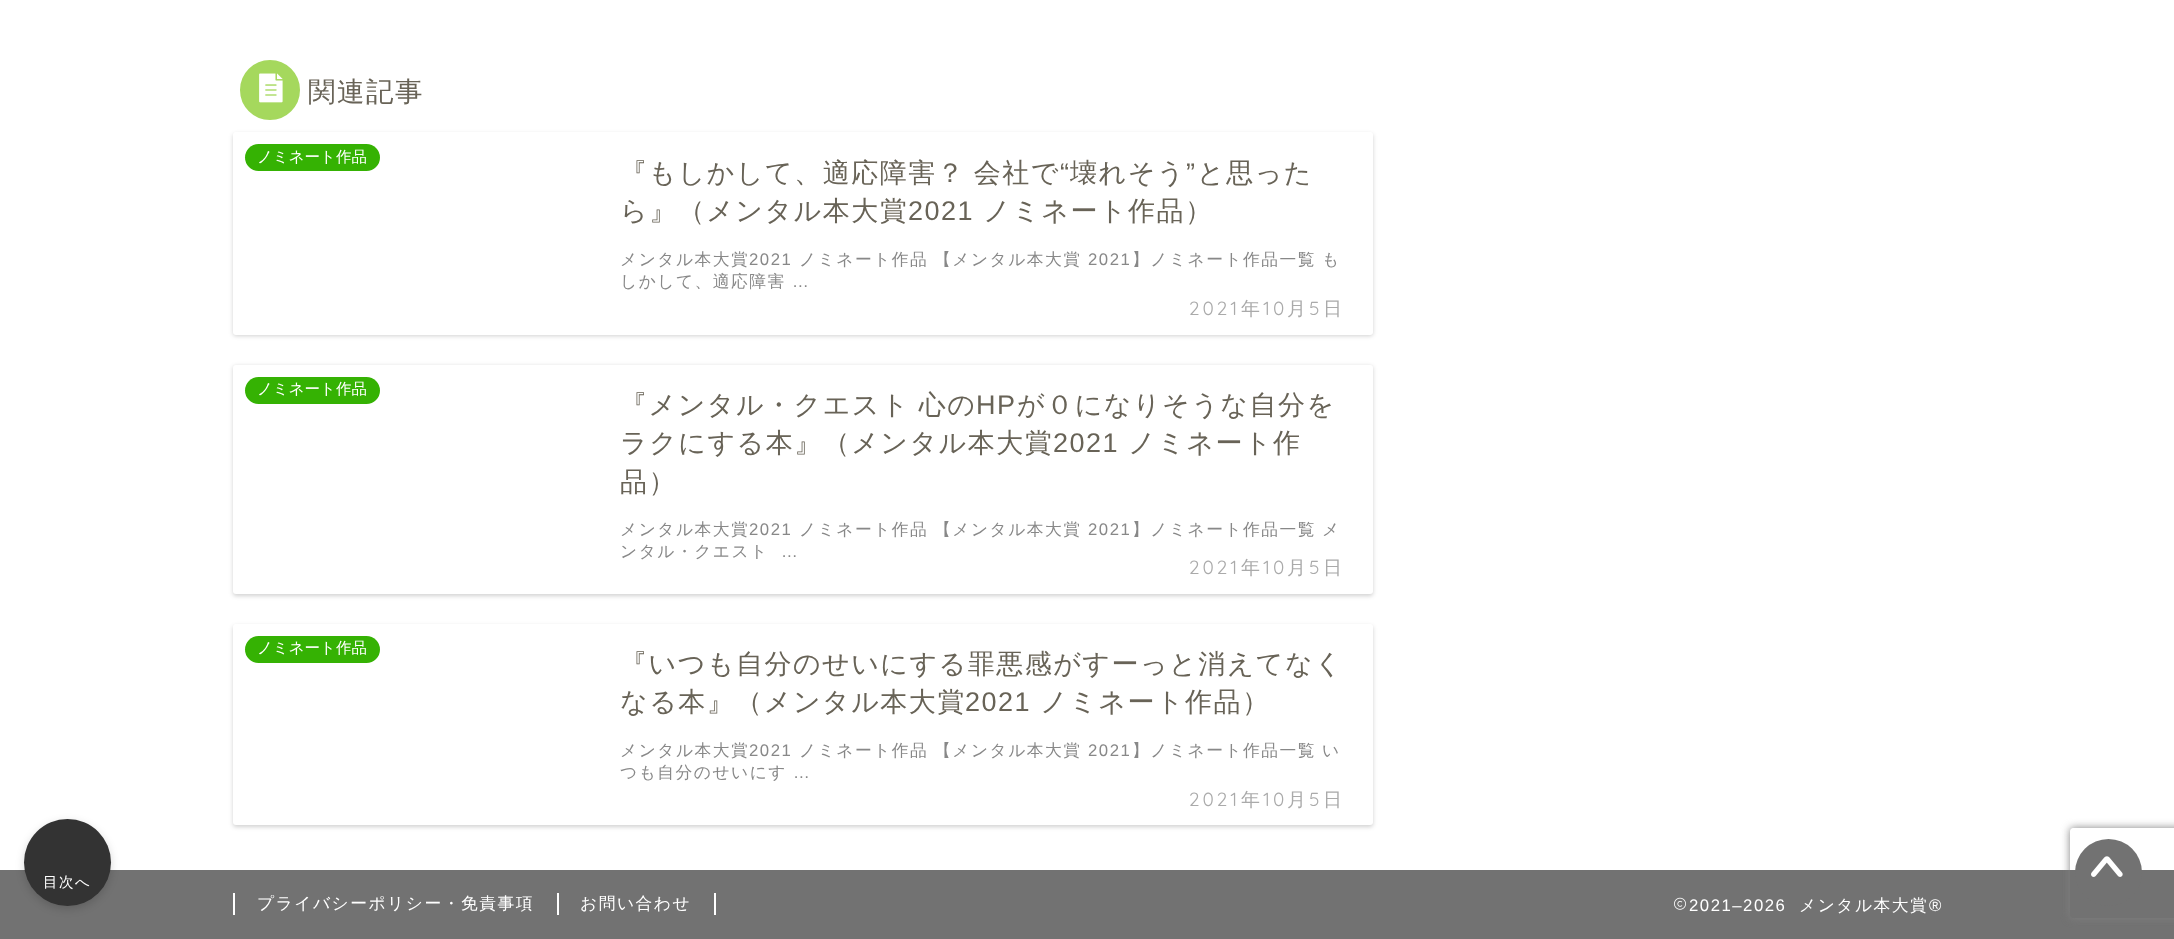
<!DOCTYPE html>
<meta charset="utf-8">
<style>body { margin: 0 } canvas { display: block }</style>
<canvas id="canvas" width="2174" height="939"></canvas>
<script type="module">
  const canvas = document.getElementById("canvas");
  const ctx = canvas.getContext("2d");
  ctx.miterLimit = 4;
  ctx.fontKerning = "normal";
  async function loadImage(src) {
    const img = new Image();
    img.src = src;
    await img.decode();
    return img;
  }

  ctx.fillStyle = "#ffffff";
  ctx.fillRect(0, 0, 2174, 939);
  ctx.fillStyle = "#a5d85d";
  ctx.beginPath();
  ctx.arc(270, 90, 29, 0, Math.PI * 2);
  ctx.fill();
  ctx.strokeStyle = "#a5d85d";
  ctx.lineWidth = 2;
  ctx.stroke();
  ctx.drawImage(await loadImage("img1.png"), 259, 73, 24, 30);
  ctx.letterSpacing = "1.5px";
  ctx.font = "500 27.5px WenQuanYi Zen Hei";
  ctx.fillStyle = "#686357";
  ctx.fillText("関連記事", 308, 101);
  ctx.fillStyle = "rgba(0, 0, 0, 0.18)";
  ctx.filter = "blur(2px)";
  ctx.beginPath();
  ctx.roundRect(233, 134, 1140, 202, 3);
  ctx.fill();
  ctx.filter = "none";
  ctx.fillStyle = "#ffffff";
  ctx.beginPath();
  ctx.roundRect(233, 132, 1140, 203, 3);
  ctx.fill();
  ctx.fillStyle = "#35b203";
  ctx.beginPath();
  ctx.roundRect(245, 144, 135, 27, 13.5);
  ctx.fill();
  ctx.letterSpacing = "0px";
  ctx.font = "500 15.5px WenQuanYi Zen Hei";
  ctx.fillStyle = "#ffffff";
  ctx.fillText("ノミネート作品", 257, 162);
  ctx.letterSpacing = "1.5px";
  ctx.wordSpacing = "-1px";
  ctx.font = "500 27px WenQuanYi Zen Hei";
  ctx.fillStyle = "#686357";
  ctx.fillText("『もしかして、適応障害？ 会社で", 620, 182);
  ctx.wordSpacing = "0px";
  ctx.font = "27px Liberation Sans";
  ctx.fillText("“", 1060, 182);
  ctx.font = "500 27px WenQuanYi Zen Hei";
  ctx.fillText("壊れそう", 1070, 182);
  ctx.font = "27px Liberation Sans";
  ctx.fillText("”", 1186, 182);
  ctx.font = "500 27px WenQuanYi Zen Hei";
  ctx.fillText("と思った", 1197, 182);
  ctx.fillText("ら』（メンタル本大賞", 620, 220);
  ctx.font = "27px Liberation Sans";
  ctx.fillText("2021", 908, 220);
  ctx.font = "500 27px WenQuanYi Zen Hei";
  ctx.fillText("ノミネート作品）", 983, 220);
  ctx.font = "500 16.75px WenQuanYi Zen Hei";
  ctx.fillStyle = "#888888";
  ctx.fillText("メンタル本大賞", 620, 265);
  ctx.font = "16.75px Liberation Sans";
  ctx.fillText("2021", 749, 265);
  ctx.font = "500 16.75px WenQuanYi Zen Hei";
  ctx.fillText("ノミネート作品", 799, 265);
  ctx.fillText("【メンタル本大賞", 934, 265);
  ctx.font = "16.75px Liberation Sans";
  ctx.fillText("2021", 1088, 265);
  ctx.font = "500 16.75px WenQuanYi Zen Hei";
  ctx.fillText("】ノミネート作品一覧", 1132, 265);
  ctx.fillText("も", 1322, 265);
  ctx.fillText("しかして、適応障害", 620, 287);
  ctx.font = "16.75px Liberation Sans";
  ctx.fillText("…", 792, 287);
  ctx.letterSpacing = "3px";
  ctx.font = "300 19px Quicksand";
  ctx.fillStyle = "#aaaaaa";
  ctx.fillText("2021", 1189, 315);
  ctx.font = "500 19px WenQuanYi Zen Hei";
  ctx.fillText("年", 1241, 315);
  ctx.font = "300 19px Quicksand";
  ctx.fillText("10", 1263, 315);
  ctx.font = "500 19px WenQuanYi Zen Hei";
  ctx.fillText("月", 1287, 315);
  ctx.font = "300 19px Quicksand";
  ctx.fillText("5", 1309, 315);
  ctx.font = "500 19px WenQuanYi Zen Hei";
  ctx.fillText("日", 1323, 315);
  ctx.fillStyle = "rgba(0, 0, 0, 0.18)";
  ctx.filter = "blur(2px)";
  ctx.beginPath();
  ctx.roundRect(233, 366, 1140, 230, 3);
  ctx.fill();
  ctx.filter = "none";
  ctx.fillStyle = "#ffffff";
  ctx.beginPath();
  ctx.roundRect(233, 365, 1140, 229, 3);
  ctx.fill();
  ctx.fillStyle = "#35b203";
  ctx.beginPath();
  ctx.roundRect(245, 377, 135, 27, 13.5);
  ctx.fill();
  ctx.letterSpacing = "0px";
  ctx.font = "500 15.5px WenQuanYi Zen Hei";
  ctx.fillStyle = "#ffffff";
  ctx.fillText("ノミネート作品", 257, 394);
  ctx.letterSpacing = "1.5px";
  ctx.wordSpacing = "-1px";
  ctx.font = "500 27px WenQuanYi Zen Hei";
  ctx.fillStyle = "#686357";
  ctx.fillText("『メンタル・クエスト 心の", 620, 414);
  ctx.wordSpacing = "0px";
  ctx.font = "27px Liberation Sans";
  ctx.fillText("HP", 976, 414);
  ctx.font = "500 27px WenQuanYi Zen Hei";
  ctx.fillText("が０になりそうな自分を", 1017, 414);
  ctx.fillText("ラクにする本』（メンタル本大賞", 620, 452);
  ctx.font = "27px Liberation Sans";
  ctx.fillText("2021", 1053, 452);
  ctx.font = "500 27px WenQuanYi Zen Hei";
  ctx.fillText("ノミネート作", 1128, 452);
  ctx.fillText("品）", 620, 491);
  ctx.font = "500 16.75px WenQuanYi Zen Hei";
  ctx.fillStyle = "#888888";
  ctx.fillText("メンタル本大賞", 620, 535);
  ctx.font = "16.75px Liberation Sans";
  ctx.fillText("2021", 749, 535);
  ctx.font = "500 16.75px WenQuanYi Zen Hei";
  ctx.fillText("ノミネート作品", 799, 535);
  ctx.fillText("【メンタル本大賞", 934, 535);
  ctx.font = "16.75px Liberation Sans";
  ctx.fillText("2021", 1088, 535);
  ctx.font = "500 16.75px WenQuanYi Zen Hei";
  ctx.fillText("】ノミネート作品一覧", 1132, 535);
  ctx.fillText("メ", 1322, 535);
  ctx.fillText("ンタル・クエスト", 620, 557);
  ctx.font = "16.75px Liberation Sans";
  ctx.fillText("…", 781, 557);
  ctx.letterSpacing = "3px";
  ctx.font = "300 19px Quicksand";
  ctx.fillStyle = "#aaaaaa";
  ctx.fillText("2021", 1189, 574);
  ctx.font = "500 19px WenQuanYi Zen Hei";
  ctx.fillText("年", 1241, 574);
  ctx.font = "300 19px Quicksand";
  ctx.fillText("10", 1263, 574);
  ctx.font = "500 19px WenQuanYi Zen Hei";
  ctx.fillText("月", 1287, 574);
  ctx.font = "300 19px Quicksand";
  ctx.fillText("5", 1309, 574);
  ctx.font = "500 19px WenQuanYi Zen Hei";
  ctx.fillText("日", 1323, 574);
  ctx.fillStyle = "rgba(0, 0, 0, 0.18)";
  ctx.filter = "blur(2px)";
  ctx.beginPath();
  ctx.roundRect(233, 626, 1140, 201, 3);
  ctx.fill();
  ctx.filter = "none";
  ctx.fillStyle = "#ffffff";
  ctx.beginPath();
  ctx.roundRect(233, 624, 1140, 201, 3);
  ctx.fill();
  ctx.fillStyle = "#35b203";
  ctx.beginPath();
  ctx.roundRect(245, 636, 135, 27, 13.5);
  ctx.fill();
  ctx.letterSpacing = "0px";
  ctx.font = "500 15.5px WenQuanYi Zen Hei";
  ctx.fillStyle = "#ffffff";
  ctx.fillText("ノミネート作品", 257, 653);
  ctx.letterSpacing = "1.5px";
  ctx.font = "500 27px WenQuanYi Zen Hei";
  ctx.fillStyle = "#686357";
  ctx.fillText("『いつも自分のせいにする罪悪感がすーっと消えてなく", 620, 673);
  ctx.fillText("なる本』（メンタル本大賞", 620, 711);
  ctx.font = "27px Liberation Sans";
  ctx.fillText("2021", 965, 711);
  ctx.font = "500 27px WenQuanYi Zen Hei";
  ctx.fillText("ノミネート作品）", 1040, 711);
  ctx.font = "500 16.75px WenQuanYi Zen Hei";
  ctx.fillStyle = "#888888";
  ctx.fillText("メンタル本大賞", 620, 756);
  ctx.font = "16.75px Liberation Sans";
  ctx.fillText("2021", 749, 756);
  ctx.font = "500 16.75px WenQuanYi Zen Hei";
  ctx.fillText("ノミネート作品", 799, 756);
  ctx.fillText("【メンタル本大賞", 934, 756);
  ctx.font = "16.75px Liberation Sans";
  ctx.fillText("2021", 1088, 756);
  ctx.font = "500 16.75px WenQuanYi Zen Hei";
  ctx.fillText("】ノミネート作品一覧", 1132, 756);
  ctx.fillText("い", 1322, 756);
  ctx.fillText("つも自分のせいにす", 620, 778);
  ctx.font = "16.75px Liberation Sans";
  ctx.fillText("…", 793, 778);
  ctx.letterSpacing = "3px";
  ctx.font = "300 19px Quicksand";
  ctx.fillStyle = "#aaaaaa";
  ctx.fillText("2021", 1189, 806);
  ctx.font = "500 19px WenQuanYi Zen Hei";
  ctx.fillText("年", 1241, 806);
  ctx.font = "300 19px Quicksand";
  ctx.fillText("10", 1263, 806);
  ctx.font = "500 19px WenQuanYi Zen Hei";
  ctx.fillText("月", 1287, 806);
  ctx.font = "300 19px Quicksand";
  ctx.fillText("5", 1309, 806);
  ctx.font = "500 19px WenQuanYi Zen Hei";
  ctx.fillText("日", 1323, 806);
  ctx.fillStyle = "#727272";
  ctx.fillRect(0, 870, 2174, 69);
  ctx.fillStyle = "#ffffff";
  ctx.fillRect(557, 893, 2, 22);
  ctx.fillRect(233, 893, 2, 22);
  ctx.letterSpacing = "1.5px";
  ctx.font = "500 16.75px WenQuanYi Zen Hei";
  ctx.fillText("プライバシーポリシー・免責事項", 257, 909);
  ctx.fillRect(714, 893, 2, 22);
  ctx.fillText("お問い合わせ", 580, 909);
  ctx.drawImage(await loadImage("img2.png"), 1674, 897, 12, 13);
  ctx.font = "16.75px Liberation Sans";
  ctx.fillText("2021–2026", 1689, 911);
  ctx.font = "500 16.75px WenQuanYi Zen Hei";
  ctx.fillText("メンタル本大賞", 1799, 911);
  ctx.font = "16.75px Liberation Sans";
  ctx.fillText("®", 1929, 911);
  ctx.save();
  ctx.beginPath();
  ctx.moveTo(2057, 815);
  ctx.lineTo(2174, 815);
  ctx.lineTo(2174, 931);
  ctx.lineTo(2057, 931);
  ctx.closePath();
  ctx.moveTo(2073, 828);
  ctx.lineTo(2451, 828);
  ctx.bezierCurveTo(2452.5, 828, 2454, 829.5, 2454, 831);
  ctx.lineTo(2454, 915);
  ctx.bezierCurveTo(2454, 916.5, 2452.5, 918, 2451, 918);
  ctx.lineTo(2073, 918);
  ctx.bezierCurveTo(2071.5, 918, 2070, 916.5, 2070, 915);
  ctx.lineTo(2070, 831);
  ctx.bezierCurveTo(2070, 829.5, 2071.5, 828, 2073, 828);
  ctx.closePath();
  ctx.clip("evenodd");
  ctx.fillStyle = "#808080";
  ctx.filter = "blur(4px)";
  ctx.beginPath();
  ctx.roundRect(2070, 828, 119, 90, 3);
  ctx.fill();
  ctx.filter = "none";
  ctx.restore();
  ctx.fillStyle = "rgba(0, 0, 0, 0.16)";
  ctx.filter = "blur(4.5px)";
  ctx.beginPath();
  ctx.roundRect(24, 822, 87, 87, 43.5);
  ctx.fill();
  ctx.filter = "none";
  ctx.fillStyle = "#333333";
  ctx.beginPath();
  ctx.arc(67.5, 862.5, 43.5, 0, Math.PI * 2);
  ctx.fill();
  ctx.font = "500 14.5px WenQuanYi Zen Hei";
  ctx.fillStyle = "#ffffff";
  ctx.fillText("目次へ", 43, 887);
  ctx.fillStyle = "#727272";
  ctx.beginPath();
  ctx.arc(2108.5, 872.5, 33.5, 0, Math.PI * 2);
  ctx.fill();
  ctx.drawImage(await loadImage("img3.png"), 2091, 856, 32, 21);
</script>
